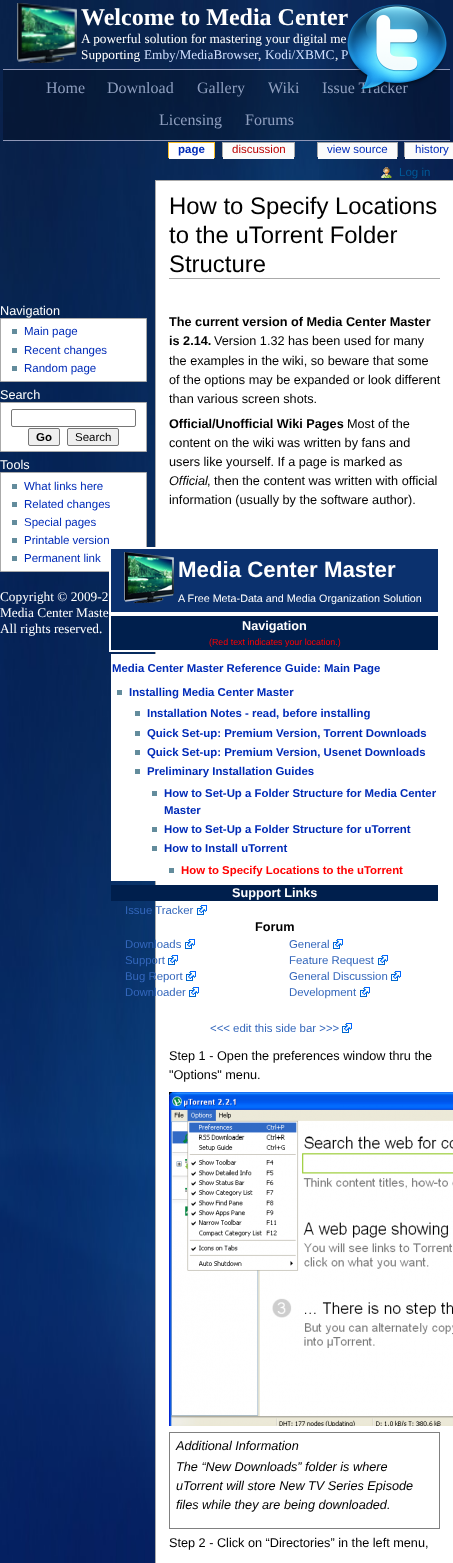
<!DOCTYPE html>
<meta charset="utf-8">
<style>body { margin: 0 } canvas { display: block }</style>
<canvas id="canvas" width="453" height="1563"></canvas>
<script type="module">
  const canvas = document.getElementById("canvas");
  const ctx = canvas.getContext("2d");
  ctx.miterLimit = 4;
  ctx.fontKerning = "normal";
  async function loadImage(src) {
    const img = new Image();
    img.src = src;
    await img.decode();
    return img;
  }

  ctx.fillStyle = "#ffffff";
  ctx.fillRect(0, 0, 453, 1563);
  ctx.drawImage(await loadImage("img1.png"), 0, 0, 453, 1563);
  ctx.font = "bold 24px Liberation Serif";
  ctx.fillText("Welcome to Media Center", 81, 25);
  ctx.font = "13.3px Liberation Serif";
  ctx.fillText("A powerful solution for mastering your digital me", 81, 43);
  ctx.fillStyle = "#cfdfff";
  ctx.fillText("P", 341, 59);
  ctx.fillStyle = "#8f97b7";
  ctx.fillRect(3, 69, 447, 1);
  ctx.fillStyle = "rgba(0, 0, 0, 0.25)";
  ctx.fillRect(3, 70, 447, 70);
  ctx.font = "16px Liberation Serif";
  ctx.fillStyle = "#8f9fbf";
  ctx.fillText("Issue Tracker", 322, 93);
  ctx.drawImage(await loadImage("img2.png"), 347, 4, 100, 86);
  ctx.drawImage(await loadImage("img3.png"), 17, 3, 60, 60);
  ctx.font = "13.3px Liberation Serif";
  ctx.fillStyle = "#ffffff";
  ctx.fillText("Supporting", 81, 59);
  ctx.fillStyle = "#cfdfff";
  ctx.fillText("Emby/MediaBrowser", 144, 59);
  ctx.fillText("Kodi/XBMC", 265, 59);
  ctx.fillStyle = "#ffffff";
  ctx.fillText(",", 258, 59);
  ctx.fillText(",", 335, 59);
  ctx.font = "16px Liberation Serif";
  ctx.fillStyle = "#8f9fbf";
  ctx.fillText("Home", 46, 93);
  ctx.fillText("Download", 107, 93);
  ctx.fillText("Gallery", 197, 93);
  ctx.fillText("Wiki", 268, 93);
  ctx.fillText("Licensing", 159, 125);
  ctx.fillText("Forums", 245, 125);
  ctx.fillStyle = "#8f97b7";
  ctx.fillRect(3, 140, 447, 1);
  ctx.fillStyle = "#ffffff";
  ctx.fillRect(169, 143, 45, 16);
  ctx.font = "bold 11.5px Liberation Sans";
  ctx.fillStyle = "#002bb8";
  ctx.fillText("page", 178, 153);
  ctx.fillStyle = "#fabd23";
  ctx.fillRect(168, 142, 47, 1);
  ctx.fillRect(214, 142, 1, 16);
  ctx.fillRect(168, 142, 1, 16);
  ctx.fillStyle = "#fbfbfb";
  ctx.fillRect(223, 143, 71, 16);
  ctx.font = "11.5px Liberation Sans";
  ctx.fillStyle = "#ba0000";
  ctx.fillText("discussion", 232, 153);
  ctx.fillStyle = "#aaaaaa";
  ctx.fillRect(222, 142, 73, 1);
  ctx.fillRect(294, 142, 1, 15);
  ctx.fillRect(222, 142, 1, 15);
  ctx.fillStyle = "#fbfbfb";
  ctx.fillRect(318, 143, 79, 16);
  ctx.fillStyle = "#002bb8";
  ctx.fillText("view source", 327, 153);
  ctx.fillStyle = "#aaaaaa";
  ctx.fillRect(317, 142, 81, 1);
  ctx.fillRect(397, 142, 1, 15);
  ctx.fillRect(317, 142, 1, 15);
  ctx.fillStyle = "#fbfbfb";
  ctx.fillRect(405, 143, 48, 16);
  ctx.fillStyle = "#002bb8";
  ctx.fillText("history", 415, 153);
  ctx.fillStyle = "#aaaaaa";
  ctx.fillRect(404, 142, 49, 1);
  ctx.fillRect(404, 142, 1, 15);
  ctx.drawImage(await loadImage("img4.png"), 381, 167, 11, 11);
  ctx.fillStyle = "#005896";
  ctx.fillText("Log in", 399, 176);
  ctx.font = "12.7px Liberation Sans";
  ctx.fillStyle = "#ffffff";
  ctx.fillText("Navigation", 0, 315);
  ctx.beginPath();
  ctx.rect(0.5, 318.5, 146, 63);
  ctx.fill();
  ctx.strokeStyle = "#aaaaaa";
  ctx.stroke();
  ctx.fillStyle = "#638c9c";
  ctx.fillRect(12, 329, 5, 5);
  ctx.font = "11.5px Liberation Sans";
  ctx.fillStyle = "#002bb8";
  ctx.fillText("Main page", 24, 335);
  ctx.fillStyle = "#638c9c";
  ctx.fillRect(12, 348, 5, 5);
  ctx.fillStyle = "#002bb8";
  ctx.fillText("Recent changes", 24, 354);
  ctx.fillStyle = "#638c9c";
  ctx.fillRect(12, 366, 5, 5);
  ctx.fillStyle = "#002bb8";
  ctx.fillText("Random page", 24, 372);
  ctx.font = "12.7px Liberation Sans";
  ctx.fillStyle = "#ffffff";
  ctx.fillText("Search", 0, 399);
  ctx.beginPath();
  ctx.rect(0.5, 402.5, 146, 49);
  ctx.fill();
  ctx.stroke();
  ctx.beginPath();
  ctx.roundRect(11.5, 409.5, 124, 17, 1.5);
  ctx.strokeStyle = "#767676";
  ctx.stroke();
  ctx.fillStyle = "#efefef";
  ctx.beginPath();
  ctx.roundRect(28.5, 428.5, 31, 17, 1.5);
  ctx.fill();
  ctx.stroke();
  ctx.font = "bold 11.5px Liberation Sans";
  ctx.fillStyle = "#000000";
  ctx.fillText("Go", 36, 441);
  ctx.fillStyle = "#efefef";
  ctx.beginPath();
  ctx.roundRect(67.5, 428.5, 51, 17, 1.5);
  ctx.fill();
  ctx.stroke();
  ctx.font = "11.5px Liberation Sans";
  ctx.fillStyle = "#000000";
  ctx.fillText("Search", 75, 441);
  ctx.font = "12.7px Liberation Sans";
  ctx.fillStyle = "#ffffff";
  ctx.fillText("Tools", 0, 469);
  ctx.beginPath();
  ctx.rect(0.5, 472.5, 146, 99);
  ctx.fill();
  ctx.strokeStyle = "#aaaaaa";
  ctx.stroke();
  ctx.fillStyle = "#638c9c";
  ctx.fillRect(12, 484, 5, 5);
  ctx.font = "11.5px Liberation Sans";
  ctx.fillStyle = "#002bb8";
  ctx.fillText("What links here", 24, 490);
  ctx.fillStyle = "#638c9c";
  ctx.fillRect(12, 502, 5, 5);
  ctx.fillStyle = "#002bb8";
  ctx.fillText("Related changes", 24, 508);
  ctx.fillStyle = "#638c9c";
  ctx.fillRect(12, 520, 5, 5);
  ctx.fillStyle = "#002bb8";
  ctx.fillText("Special pages", 24, 526);
  ctx.fillStyle = "#638c9c";
  ctx.fillRect(12, 538, 5, 5);
  ctx.fillStyle = "#002bb8";
  ctx.fillText("Printable version", 24, 544);
  ctx.fillStyle = "#638c9c";
  ctx.fillRect(12, 556, 5, 5);
  ctx.fillStyle = "#002bb8";
  ctx.fillText("Permanent link", 24, 562);
  ctx.fillStyle = "#ffffff";
  ctx.fillRect(156, 181, 297, 1382);
  ctx.fillStyle = "#aaaaaa";
  ctx.fillRect(155, 180, 298, 1);
  ctx.fillRect(155, 180, 1, 1383);
  ctx.fillRect(169, 278, 271, 1);
  ctx.font = "23.9px Liberation Sans";
  ctx.fillStyle = "#000000";
  ctx.fillText("How to Specify Locations", 169, 214);
  ctx.fillText("to the uTorrent Folder", 169, 243);
  ctx.fillText("Structure", 169, 272);
  ctx.font = "bold 12.7px Liberation Sans";
  ctx.fillText("The current version of Media Center Master", 169, 326);
  ctx.fillText("is 2.14.", 169, 345);
  ctx.font = "12.7px Liberation Sans";
  ctx.fillText("Version 1.32 has been used for many", 214, 345);
  ctx.fillText("the examples in the wiki, so beware that some", 169, 365);
  ctx.fillText("of the options may be expanded or look different", 169, 384);
  ctx.fillText("than various screen shots.", 169, 403);
  ctx.font = "bold 12.7px Liberation Sans";
  ctx.fillText("Official/Unofficial Wiki Pages", 169, 428);
  ctx.font = "12.7px Liberation Sans";
  ctx.fillText("Most of the", 347, 428);
  ctx.fillText("content on the wiki was written by fans and", 169, 447);
  ctx.fillText("users like yourself. If a page is marked as", 169, 466);
  ctx.font = "italic 12.7px Liberation Sans";
  ctx.fillText("Official", 169, 485);
  ctx.font = "12.7px Liberation Sans";
  ctx.fillText(", then the content was written with official", 207, 485);
  ctx.fillText("information (usually by the software author).", 169, 504);
  ctx.fillStyle = "#0b316e";
  ctx.beginPath();
  ctx.rect(110, 548, 329, 65);
  ctx.fill();
  ctx.strokeStyle = "#ffffff";
  ctx.lineWidth = 2;
  ctx.stroke();
  ctx.drawImage(await loadImage("img5.png"), 124, 552, 50, 51);
  ctx.font = "bold 22.25px Liberation Sans";
  ctx.fillStyle = "#ffffff";
  ctx.fillText("Media Center Master", 178, 577);
  ctx.font = "10.75px Liberation Sans";
  ctx.fillText("A Free Meta-Data and Media Organization Solution", 178, 602);
  ctx.fillStyle = "#001f4d";
  ctx.beginPath();
  ctx.rect(110, 615, 329, 36);
  ctx.fill();
  ctx.stroke();
  ctx.font = "bold 12.7px Liberation Sans";
  ctx.fillStyle = "#ffffff";
  ctx.fillText("Navigation", 242, 630);
  ctx.font = "8.9px Liberation Sans";
  ctx.fillStyle = "#ff0000";
  ctx.fillText("(Red text indicates your location.)", 209, 645);
  ctx.fillStyle = "#ffffff";
  ctx.fillRect(111, 654, 45, 227);
  ctx.font = "bold 11.4px Liberation Sans";
  ctx.fillStyle = "#002bb8";
  ctx.fillText("Media Center Master Reference Guide: Main Page", 112, 672);
  ctx.fillStyle = "#638c9c";
  ctx.fillRect(117, 690, 5, 5);
  ctx.fillStyle = "#002bb8";
  ctx.fillText("Installing Media Center Master", 129, 696);
  ctx.fillStyle = "#638c9c";
  ctx.fillRect(135, 711, 5, 5);
  ctx.fillStyle = "#002bb8";
  ctx.fillText("Installation Notes - read, before installing", 147, 717);
  ctx.fillStyle = "#638c9c";
  ctx.fillRect(135, 731, 5, 5);
  ctx.fillStyle = "#002bb8";
  ctx.fillText("Quick Set-up: Premium Version, Torrent Downloads", 147, 737);
  ctx.fillStyle = "#638c9c";
  ctx.fillRect(135, 750, 5, 5);
  ctx.fillStyle = "#002bb8";
  ctx.fillText("Quick Set-up: Premium Version, Usenet Downloads", 147, 756);
  ctx.fillStyle = "#638c9c";
  ctx.fillRect(135, 769, 5, 5);
  ctx.fillStyle = "#002bb8";
  ctx.fillText("Preliminary Installation Guides", 147, 775);
  ctx.fillStyle = "#638c9c";
  ctx.fillRect(152, 791, 5, 5);
  ctx.fillStyle = "#002bb8";
  ctx.fillText("How to Set-Up a Folder Structure for Media Center", 164, 797);
  ctx.fillText("Master", 164, 814);
  ctx.fillStyle = "#638c9c";
  ctx.fillRect(152, 827, 5, 5);
  ctx.fillStyle = "#002bb8";
  ctx.fillText("How to Set-Up a Folder Structure for uTorrent", 164, 833);
  ctx.fillStyle = "#638c9c";
  ctx.fillRect(152, 846, 5, 5);
  ctx.fillStyle = "#002bb8";
  ctx.fillText("How to Install uTorrent", 164, 852);
  ctx.fillStyle = "#638c9c";
  ctx.fillRect(169, 868, 5, 5);
  ctx.fillStyle = "#ff0000";
  ctx.fillText("How to Specify Locations to the uTorrent", 181, 874);
  ctx.fillStyle = "#001f4d";
  ctx.fillRect(111, 885, 327, 16);
  ctx.font = "bold 12.7px Liberation Sans";
  ctx.fillStyle = "#ffffff";
  ctx.fillText("Support Links", 232, 897);
  ctx.font = "11.4px Liberation Sans";
  ctx.fillStyle = "#3366bb";
  ctx.fillText("Issue Tracker", 125, 914);
  ctx.drawImage(await loadImage("img6.png"), 197, 905, 10, 10);
  ctx.font = "bold 12.7px Liberation Sans";
  ctx.fillStyle = "#000000";
  ctx.fillText("Forum", 255, 931);
  ctx.font = "11.4px Liberation Sans";
  ctx.fillStyle = "#3366bb";
  ctx.fillText("Downloads", 125, 948);
  ctx.drawImage(await loadImage("img6.png"), 185, 939, 10, 10);
  ctx.fillText("General", 289, 948);
  ctx.drawImage(await loadImage("img6.png"), 333, 939, 10, 10);
  ctx.fillText("Support", 125, 964);
  ctx.drawImage(await loadImage("img6.png"), 168, 955, 10, 10);
  ctx.fillText("Feature Request", 289, 964);
  ctx.drawImage(await loadImage("img6.png"), 378, 955, 10, 10);
  ctx.fillText("Bug Report", 125, 980);
  ctx.drawImage(await loadImage("img6.png"), 186, 971, 10, 10);
  ctx.fillText("General Discussion", 289, 980);
  ctx.drawImage(await loadImage("img6.png"), 391, 971, 10, 10);
  ctx.fillText("Downloader", 125, 996);
  ctx.drawImage(await loadImage("img6.png"), 189, 987, 10, 10);
  ctx.fillText("Development", 289, 996);
  ctx.drawImage(await loadImage("img6.png"), 360, 987, 10, 10);
  ctx.fillText("<<< edit this side bar >>>", 210, 1032);
  ctx.drawImage(await loadImage("img6.png"), 342, 1023, 10, 10);
  ctx.font = "12.7px Liberation Sans";
  ctx.fillStyle = "#000000";
  ctx.fillText("Step 1 - Open the preferences window thru the", 169, 1060);
  ctx.fillText("\"Options\" menu.", 169, 1079);
  ctx.drawImage(await loadImage("img7.png"), 169, 1092, 284, 334);
  ctx.strokeStyle = "#808080";
  ctx.lineWidth = 1;
  ctx.strokeRect(169.5, 1432.5, 270, 96);
  ctx.font = "italic 12.7px Liberation Sans";
  ctx.fillText("Additional Information", 176, 1450);
  ctx.fillText("The “New Downloads” folder is where", 176, 1471);
  ctx.fillText("uTorrent will store New TV Series Episode", 176, 1490);
  ctx.fillText("files while they are being downloaded.", 176, 1509);
  ctx.font = "12.7px Liberation Sans";
  ctx.fillText("Step 2 - Click on “Directories” in the left menu,", 169, 1547);
  ctx.font = "13.3px Liberation Serif";
  ctx.fillStyle = "#ffffff";
  ctx.fillText("Copyright © 2009-2", 0, 601);
  ctx.fillText("Media Center Maste", 0, 617);
  ctx.fillText("All rights reserved.", 0, 633);
</script>
